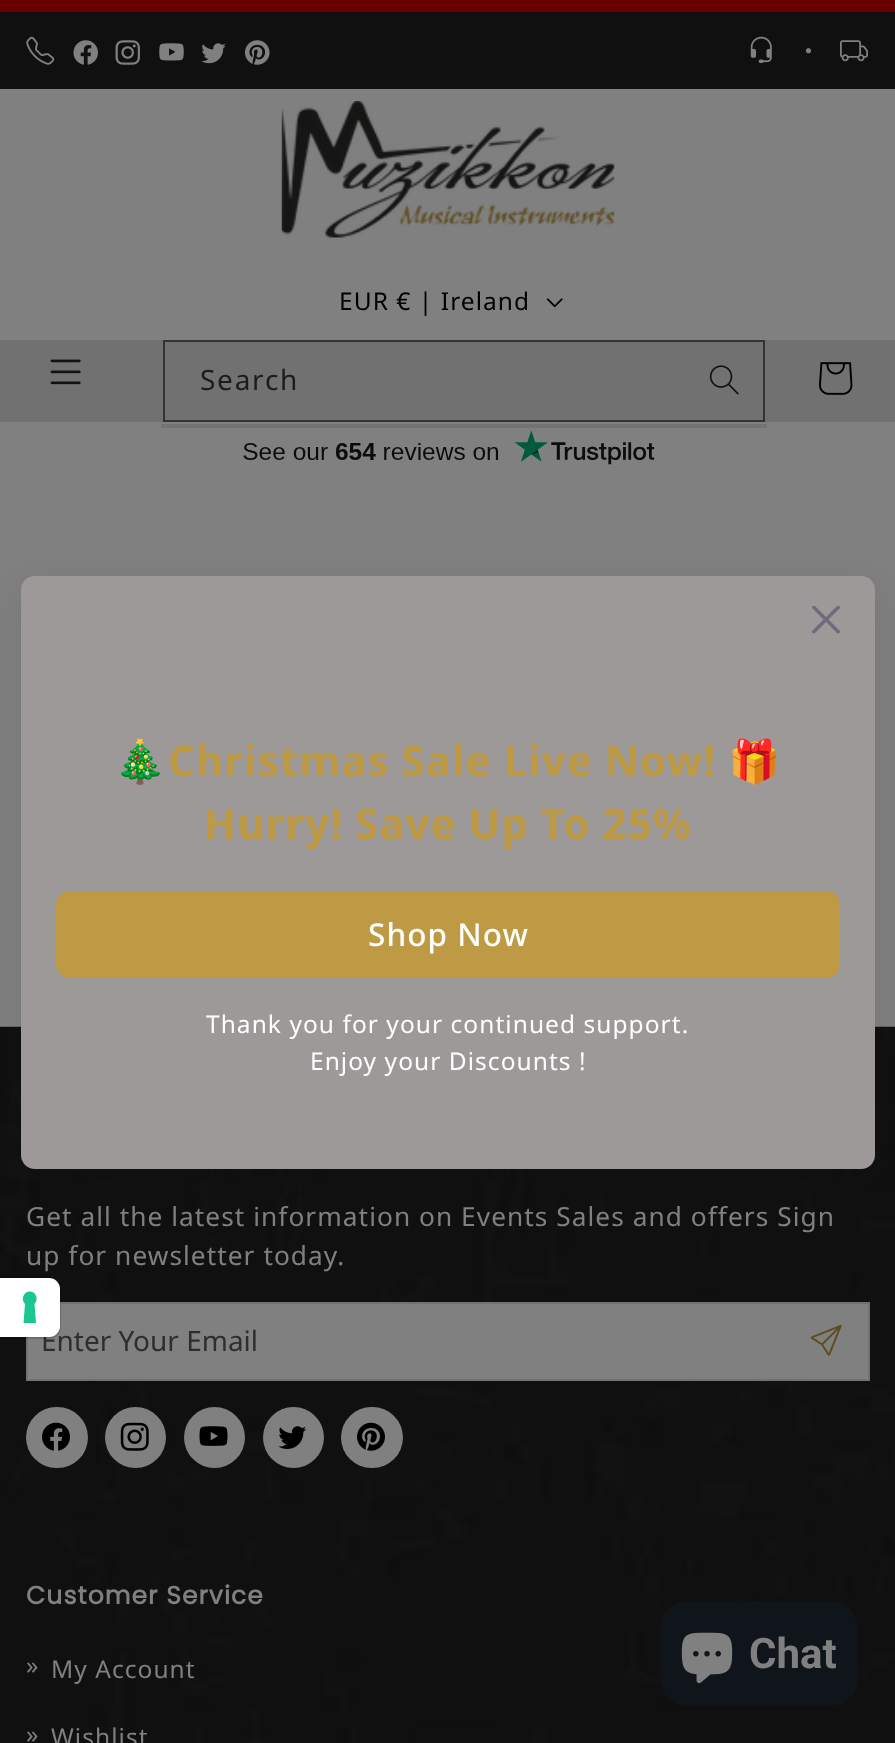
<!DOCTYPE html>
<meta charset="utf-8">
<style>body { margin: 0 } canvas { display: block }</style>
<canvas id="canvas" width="895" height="1743"></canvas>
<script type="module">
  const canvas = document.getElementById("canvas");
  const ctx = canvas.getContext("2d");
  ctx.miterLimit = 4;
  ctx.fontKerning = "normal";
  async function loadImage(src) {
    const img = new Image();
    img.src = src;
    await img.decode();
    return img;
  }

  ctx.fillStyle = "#808080";
  ctx.fillRect(0, 0, 895, 1743);
  ctx.fillStyle = "#690101";
  ctx.fillRect(0, 0, 895, 12);
  ctx.fillStyle = "#101010";
  ctx.fillRect(0, 12, 895, 77);
  ctx.drawImage(await loadImage("img1.png"), 26, 36, 29, 29);
  ctx.drawImage(await loadImage("img2.png"), 73, 40, 25, 25);
  ctx.drawImage(await loadImage("img3.png"), 115, 40, 25, 25);
  ctx.drawImage(await loadImage("img4.png"), 159, 43, 25, 18);
  ctx.drawImage(await loadImage("img5.png"), 201, 43, 25, 21);
  ctx.drawImage(await loadImage("img6.png"), 245, 40, 25, 25);
  ctx.drawImage(await loadImage("img7.png"), 750, 36, 22, 27);
  ctx.drawImage(await loadImage("img8.png"), 805, 48, 7, 6);
  ctx.drawImage(await loadImage("img9.png"), 840, 40, 28, 22);
  ctx.drawImage(await loadImage("img10.png"), 281, 101, 334, 137);
  ctx.letterSpacing = "1.05px";
  ctx.font = "24.5px Noto Sans";
  ctx.fillStyle = "#000000";
  ctx.fillText("EUR € | Ireland", 339, 310);
  ctx.drawImage(await loadImage("img11.png"), 546, 298, 17, 10);
  ctx.fillStyle = "#717171";
  ctx.fillRect(0, 340, 895, 82);
  ctx.drawImage(await loadImage("img12.png"), 50, 359, 31, 26);
  ctx.drawImage(await loadImage("img13.png"), 709, 365, 30, 30);
  ctx.strokeStyle = "#333333";
  ctx.lineWidth = 2;
  ctx.strokeRect(164, 341, 600, 80);
  ctx.letterSpacing = "1.75px";
  ctx.font = "28px Noto Sans";
  ctx.fillStyle = "#1c1c1c";
  ctx.fillText("Search", 200, 390);
  ctx.fillStyle = "#737373";
  ctx.fillRect(161, 424, 606, 4);
  ctx.drawImage(await loadImage("img14.png"), 819, 362, 34, 33);
  ctx.drawImage(await loadImage("img15.png"), 243, 430, 412, 35);
  ctx.drawImage(await loadImage("img17.png"), 0, 1026, 895, 717);
  ctx.save();
  ctx.beginPath();
  ctx.rect(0, 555, 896, 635);
  ctx.clip();
  ctx.fillStyle = "rgba(18, 17, 39, 0.1)";
  ctx.filter = "blur(17.5px)";
  ctx.beginPath();
  ctx.roundRect(21, 590, 854, 593, 14);
  ctx.fill();
  ctx.filter = "none";
  ctx.restore();
  ctx.fillStyle = "#9e9999";
  ctx.beginPath();
  ctx.roundRect(21, 576, 854, 593, 14);
  ctx.fill();
  ctx.drawImage(await loadImage("img16.png"), 812, 606, 28, 28);
  ctx.letterSpacing = "1.05px";
  ctx.font = "bold 42px Noto Color Emoji";
  ctx.fillStyle = "#bd9a43";
  ctx.fillText("🎄", 114, 776);
  ctx.font = "bold 42px Noto Sans";
  ctx.fillText("Christmas Sale Live Now!", 168, 776);
  ctx.font = "bold 42px Noto Color Emoji";
  ctx.fillText("🎁", 728, 776);
  ctx.font = "bold 42px Noto Sans";
  ctx.fillText("Hurry! Save Up To 25%", 204, 839);
  ctx.beginPath();
  ctx.roundRect(56, 891, 784, 87, 14);
  ctx.fill();
  ctx.font = "500 31.5px Noto Sans";
  ctx.fillStyle = "#ffffff";
  ctx.fillText("Shop Now", 368, 946);
  ctx.font = "24.5px Noto Sans";
  ctx.fillText("Thank you for your continued support.", 206, 1033);
  ctx.fillText("Enjoy your Discounts !", 310, 1070);
  ctx.font = "26.25px Noto Sans";
  ctx.fillStyle = "#808080";
  ctx.fillText("Get all the latest information on Events Sales and offers Sign", 26, 1226);
  ctx.fillText("up for newsletter today.", 26, 1265);
  ctx.beginPath();
  ctx.rect(27, 1303, 842, 77);
  ctx.fill();
  ctx.strokeStyle = "#6f7173";
  ctx.stroke();
  ctx.letterSpacing = "0px";
  ctx.font = "28px Noto Sans";
  ctx.fillStyle = "#2d2e30";
  ctx.fillText("Enter Your Email", 41, 1351);
  ctx.drawImage(await loadImage("img18.png"), 810, 1324, 32, 32);
  ctx.fillStyle = "#808080";
  ctx.beginPath();
  ctx.roundRect(26, 1407, 62, 61, 30.5);
  ctx.fill();
  ctx.drawImage(await loadImage("img19.png"), 42, 1422, 28, 29);
  ctx.beginPath();
  ctx.arc(135.5, 1437.5, 30.5, 0, Math.PI * 2);
  ctx.fill();
  ctx.drawImage(await loadImage("img20.png"), 120, 1422, 29, 29);
  ctx.beginPath();
  ctx.arc(214.5, 1437.5, 30.5, 0, Math.PI * 2);
  ctx.fill();
  ctx.drawImage(await loadImage("img21.png"), 199, 1426, 29, 20);
  ctx.beginPath();
  ctx.arc(293.5, 1437.5, 30.5, 0, Math.PI * 2);
  ctx.fill();
  ctx.drawImage(await loadImage("img22.png"), 278, 1426, 28, 23);
  ctx.beginPath();
  ctx.roundRect(341, 1407, 62, 61, 30.5);
  ctx.fill();
  ctx.drawImage(await loadImage("img23.png"), 357, 1422, 28, 29);
  ctx.letterSpacing = "1.05px";
  ctx.font = "bold 25px Poppins";
  ctx.fillText("Customer Service", 26, 1604);
  ctx.font = "24.5px Noto Sans";
  ctx.fillText("»", 26, 1674);
  ctx.fillText("My Account", 51, 1678);
  ctx.fillText("»", 26, 1743);
  ctx.fillText("Wishlist", 51, 1746);
  ctx.beginPath();
  ctx.moveTo(-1, 1277);
  ctx.lineTo(49, 1277);
  ctx.bezierCurveTo(55, 1277, 60, 1282, 60, 1288);
  ctx.lineTo(60, 1327);
  ctx.bezierCurveTo(60, 1333, 55, 1338, 49, 1338);
  ctx.lineTo(-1, 1338);
  ctx.closePath();
  ctx.strokeStyle = "rgba(0, 0, 0, 0.15)";
  ctx.stroke();
  ctx.fillStyle = "#ffffff";
  ctx.beginPath();
  ctx.roundRect(0, 1278, 60, 59, [0, 11, 11, 0]);
  ctx.fill();
  ctx.fillStyle = "#1cc691";
  ctx.beginPath();
  ctx.moveTo(30, 1291.5);
  ctx.bezierCurveTo(36, 1291.5, 39, 1299.5, 34.5, 1304);
  ctx.lineTo(36, 1323);
  ctx.lineTo(23.5, 1323);
  ctx.lineTo(25, 1304);
  ctx.bezierCurveTo(20.5, 1299.5, 23.5, 1291.5, 30, 1291.5);
  ctx.closePath();
  ctx.fill("evenodd");
  ctx.fillStyle = "#10151b";
  ctx.beginPath();
  ctx.roundRect(660, 1601, 198, 105, 28);
  ctx.fill();
  ctx.drawImage(await loadImage("img24.png"), 681, 1632, 52, 52);
  ctx.letterSpacing = "0px";
  ctx.font = "bold 42px Roboto";
  ctx.fillStyle = "#808080";
  ctx.fillText("Chat", 749, 1668);
</script>
